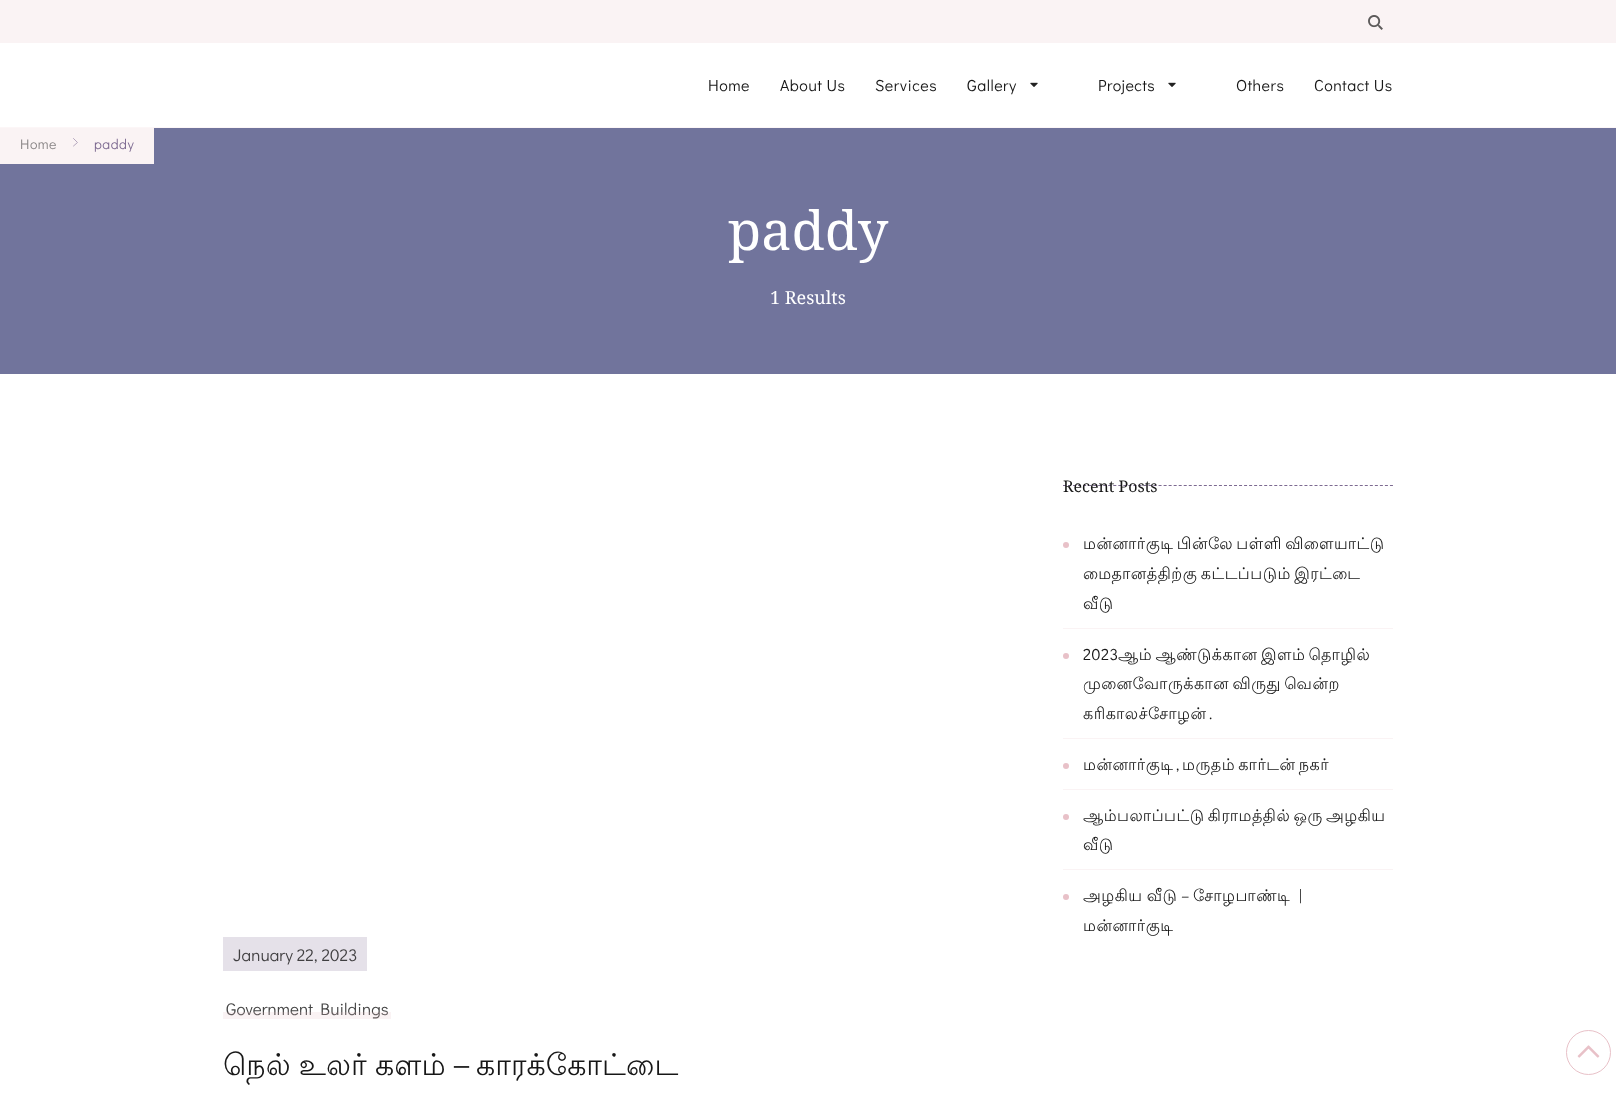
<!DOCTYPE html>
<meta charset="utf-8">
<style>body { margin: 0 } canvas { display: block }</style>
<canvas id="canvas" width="1616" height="1108"></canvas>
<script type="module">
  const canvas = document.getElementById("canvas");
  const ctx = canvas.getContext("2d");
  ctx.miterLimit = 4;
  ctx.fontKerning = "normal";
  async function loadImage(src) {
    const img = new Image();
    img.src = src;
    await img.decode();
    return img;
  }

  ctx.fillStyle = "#ffffff";
  ctx.fillRect(0, 0, 1616, 1108);
  ctx.fillStyle = "#fcf6f7";
  ctx.fillRect(0, 127, 1616, 1);
  ctx.fillStyle = "#faf3f4";
  ctx.fillRect(0, 0, 1616, 43);
  ctx.drawImage(await loadImage("img1.png"), 1368, 15, 15, 15);
  ctx.letterSpacing = "0.5px";
  ctx.font = "16px Didact Gothic";
  ctx.fillStyle = "#171717";
  ctx.fillText("Home", 708, 91);
  ctx.fillText("About Us", 780, 91);
  ctx.fillText("Services", 875, 91);
  ctx.fillText("Gallery", 967, 91);
  ctx.drawImage(await loadImage("img2.png"), 1030, 82, 8, 5);
  ctx.fillText("Projects", 1098, 91);
  ctx.drawImage(await loadImage("img2.png"), 1168, 82, 8, 5);
  ctx.fillText("Others", 1236, 91);
  ctx.fillText("Contact Us", 1314, 91);
  ctx.fillStyle = "#71749c";
  ctx.fillRect(0, 128, 1616, 246);
  ctx.fillStyle = "#faf3f4";
  ctx.fillRect(0, 128, 154, 36);
  ctx.font = "14px Didact Gothic";
  ctx.fillStyle = "#898586";
  ctx.fillText("Home", 20, 149);
  ctx.beginPath();
  ctx.moveTo(73.5, 138.5);
  ctx.lineTo(77.5, 142.5);
  ctx.lineTo(73.5, 146);
  ctx.strokeStyle = "#b4a6bd";
  ctx.lineCap = "round";
  ctx.stroke();
  ctx.fillStyle = "#7d6a91";
  ctx.fillText("paddy", 94, 149);
  ctx.letterSpacing = "0px";
  ctx.font = "54px Noto Serif";
  ctx.fillStyle = "#ffffff";
  ctx.fillText("paddy", 728, 250);
  ctx.font = "18px Noto Serif";
  ctx.fillText("1 Results", 770, 304);
  ctx.beginPath();
  ctx.moveTo(1063, 485.5);
  ctx.lineTo(1393, 485.5);
  ctx.strokeStyle = "#7d6a91";
  ctx.lineCap = "butt";
  ctx.setLineDash([3, 2.03]);
  ctx.stroke();
  ctx.font = "16px Noto Serif";
  ctx.fillStyle = "#171717";
  ctx.fillText("Recent Posts", 1063, 492);
  ctx.fillStyle = "#faf3f4";
  ctx.fillRect(1063, 628, 330, 1);
  ctx.fillStyle = "#e8c1c8";
  ctx.beginPath();
  ctx.arc(1066, 545, 3, 0, Math.PI * 2);
  ctx.fill();
  ctx.letterSpacing = "0.5px";
  ctx.wordSpacing = "-2px";
  ctx.font = "16px Lohit Tamil";
  ctx.fillStyle = "#171717";
  ctx.fillText("மன்னார்குடி பின்லே பள்ளி விளையாட்டு", 1083, 549);
  ctx.fillText("மைதானத்திற்கு கட்டப்படும் இரட்டை", 1083, 579);
  ctx.wordSpacing = "0px";
  ctx.fillText("வீடு", 1083, 609);
  ctx.fillStyle = "#faf3f4";
  ctx.fillRect(1063, 738, 330, 1);
  ctx.fillStyle = "#e8c1c8";
  ctx.beginPath();
  ctx.arc(1066, 656, 3, 0, Math.PI * 2);
  ctx.fill();
  ctx.font = "16px Didact Gothic";
  ctx.fillStyle = "#171717";
  ctx.fillText("2023", 1083, 660);
  ctx.wordSpacing = "-2px";
  ctx.font = "16px Lohit Tamil";
  ctx.fillText("ஆம் ஆண்டுக்கான இளம் தொழில்", 1118, 660);
  ctx.fillText("முனைவோருக்கான விருது வென்ற", 1083, 689);
  ctx.wordSpacing = "0px";
  ctx.fillText("கரிகாலச்சோழன்", 1083, 719);
  ctx.font = "16px Didact Gothic";
  ctx.fillText(".", 1209, 719);
  ctx.fillStyle = "#faf3f4";
  ctx.fillRect(1063, 789, 330, 1);
  ctx.fillStyle = "#e8c1c8";
  ctx.beginPath();
  ctx.arc(1066, 766, 3, 0, Math.PI * 2);
  ctx.fill();
  ctx.font = "16px Lohit Tamil";
  ctx.fillStyle = "#171717";
  ctx.fillText("மன்னார்குடி", 1083, 770);
  ctx.wordSpacing = "-2px";
  ctx.fillText("மருதம் கார்டன் நகர்", 1182, 770);
  ctx.wordSpacing = "0px";
  ctx.font = "16px Didact Gothic";
  ctx.fillText(",", 1176, 770);
  ctx.fillStyle = "#faf3f4";
  ctx.fillRect(1063, 869, 330, 1);
  ctx.fillStyle = "#e8c1c8";
  ctx.beginPath();
  ctx.arc(1066, 817, 3, 0, Math.PI * 2);
  ctx.fill();
  ctx.wordSpacing = "-2px";
  ctx.font = "16px Lohit Tamil";
  ctx.fillStyle = "#171717";
  ctx.fillText("ஆம்பலாப்பட்டு கிராமத்தில் ஒரு அழகிய", 1083, 821);
  ctx.wordSpacing = "0px";
  ctx.fillText("வீடு", 1083, 850);
  ctx.fillStyle = "#e8c1c8";
  ctx.beginPath();
  ctx.arc(1066, 897, 3, 0, Math.PI * 2);
  ctx.fill();
  ctx.wordSpacing = "-1px";
  ctx.fillStyle = "#171717";
  ctx.fillText("அழகிய வீடு", 1083, 901);
  ctx.wordSpacing = "0px";
  ctx.font = "16px Didact Gothic";
  ctx.fillText("–", 1181, 901);
  ctx.font = "16px Lohit Tamil";
  ctx.fillText("சோழபாண்டி", 1193, 901);
  ctx.font = "16px Didact Gothic";
  ctx.fillText("|", 1299, 901);
  ctx.font = "16px Lohit Tamil";
  ctx.fillText("மன்னார்குடி", 1083, 931);
  ctx.fillStyle = "#e5e1e9";
  ctx.fillRect(223, 937, 144, 34);
  ctx.letterSpacing = "0.1px";
  ctx.font = "17px Didact Gothic";
  ctx.fillStyle = "#403f41";
  ctx.fillText("January 22, 2023", 233, 961);
  ctx.fillStyle = "#454545";
  ctx.fillText("Government Buildings", 226, 1015);
  ctx.fillStyle = "rgba(232, 193, 200, 0.2)";
  ctx.fillRect(223, 1012, 168, 7);
  ctx.wordSpacing = "-1px";
  ctx.font = "30px Lohit Tamil";
  ctx.fillStyle = "#171717";
  ctx.fillText("நெல் உலர் களம்", 223, 1075);
  ctx.wordSpacing = "0px";
  ctx.font = "30px Noto Serif";
  ctx.fillText("–", 454, 1075);
  ctx.font = "30px Lohit Tamil";
  ctx.fillText("காரக்கோட்டை", 476, 1075);
  ctx.beginPath();
  ctx.arc(1588.5, 1052.5, 22, 0, Math.PI * 2);
  ctx.strokeStyle = "#e8c1c8";
  ctx.setLineDash([]);
  ctx.stroke();
  ctx.drawImage(await loadImage("img3.png"), 1577, 1045, 23, 13);
</script>
